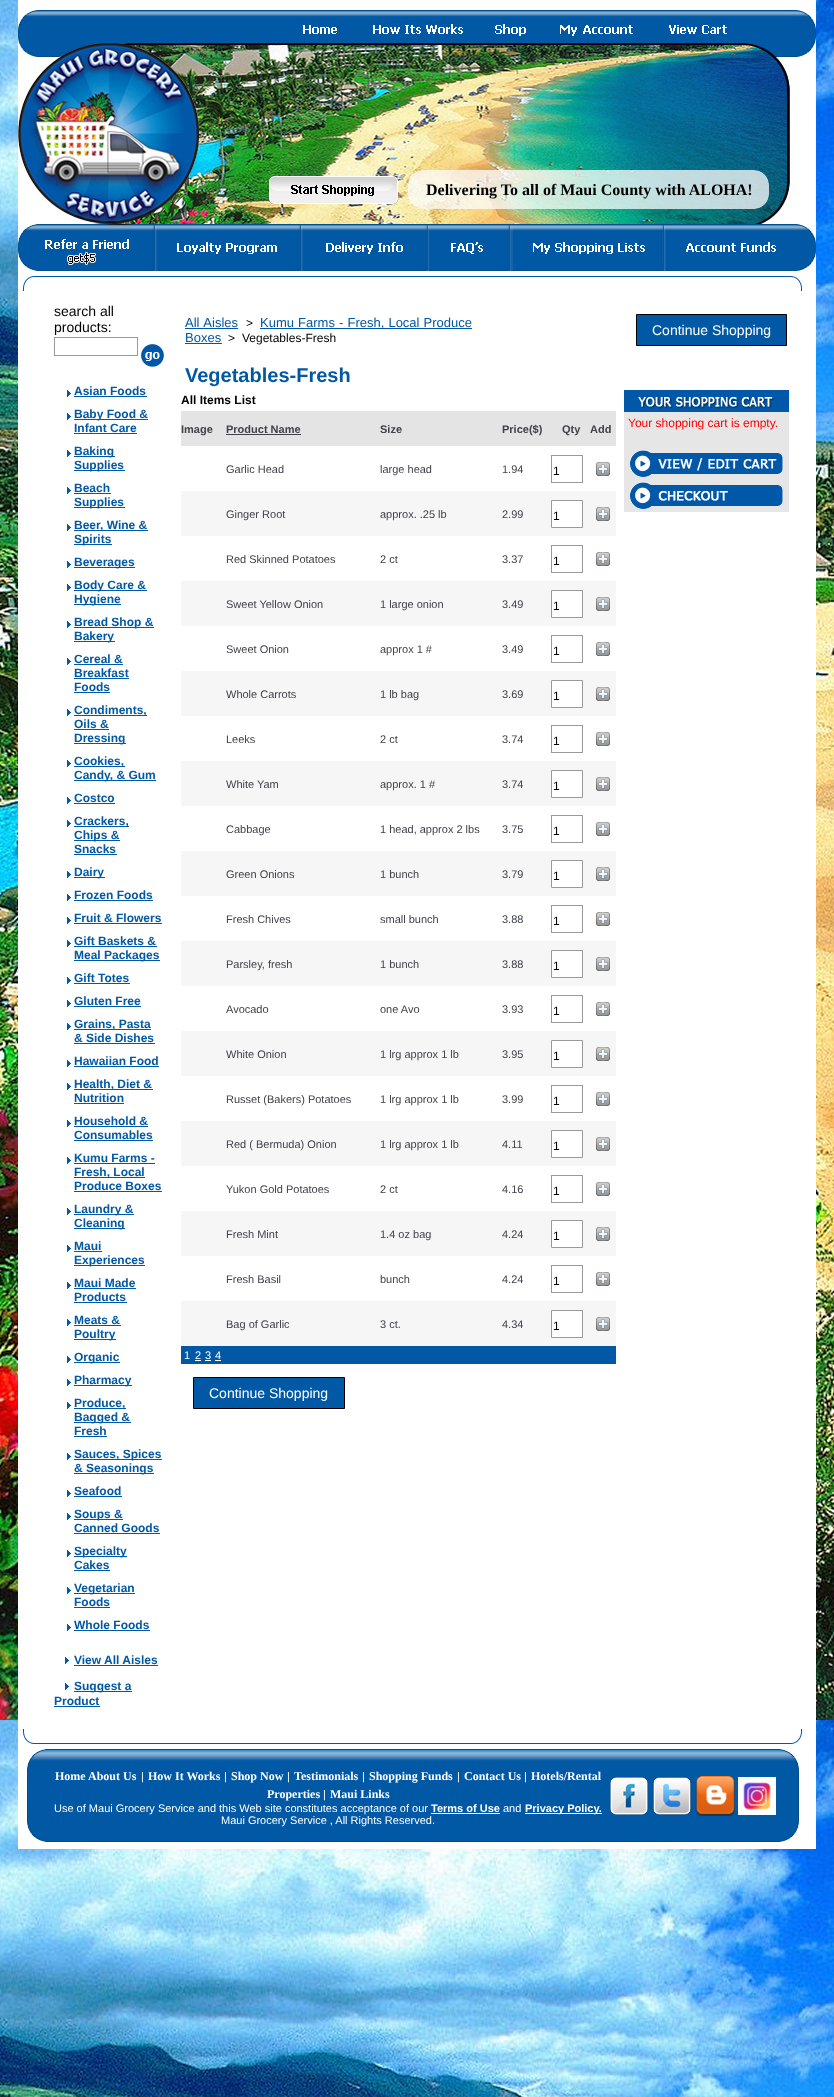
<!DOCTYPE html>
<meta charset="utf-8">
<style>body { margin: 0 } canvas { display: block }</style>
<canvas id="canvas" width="834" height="2097"></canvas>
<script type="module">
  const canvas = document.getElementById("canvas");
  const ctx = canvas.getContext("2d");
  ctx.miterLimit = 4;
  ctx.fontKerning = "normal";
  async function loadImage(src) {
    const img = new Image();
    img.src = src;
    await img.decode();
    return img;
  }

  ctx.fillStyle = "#ffffff";
  ctx.fillRect(0, 0, 834, 2097);
  ctx.drawImage(await loadImage("img1.png"), 0, 0, 834, 2097);
  ctx.fillRect(18, 0, 798, 10);
  ctx.drawImage(await loadImage("img2.png"), 18, 10, 267, 33);
  ctx.drawImage(await loadImage("img3.png"), 285, 10, 71, 33);
  ctx.drawImage(await loadImage("img4.png"), 356, 10, 123, 33);
  ctx.drawImage(await loadImage("img5.png"), 479, 10, 64, 33);
  ctx.drawImage(await loadImage("img6.png"), 543, 10, 110, 33);
  ctx.drawImage(await loadImage("img7.png"), 653, 10, 89, 33);
  ctx.drawImage(await loadImage("img8.png"), 742, 10, 74, 33);
  ctx.drawImage(await loadImage("img9.png"), 18, 43, 798, 181);
  ctx.drawImage(await loadImage("img10.png"), 18, 43, 181, 181);
  ctx.drawImage(await loadImage("img11.png"), 269, 176, 129, 28);
  ctx.drawImage(await loadImage("img12.png"), 408, 170, 14, 39);
  ctx.fillStyle = "rgba(251, 251, 251, 0.77)";
  ctx.fillRect(422, 170, 333, 39);
  ctx.font = "bold 16px Liberation Serif";
  ctx.fillStyle = "#000000";
  ctx.fillText("Delivering To all of Maui County with ALOHA!", 426, 195);
  ctx.drawImage(await loadImage("img13.png"), 755, 170, 14, 39);
  ctx.drawImage(await loadImage("img14.png"), 18, 224, 139, 47);
  ctx.drawImage(await loadImage("img15.png"), 157, 224, 146, 47);
  ctx.drawImage(await loadImage("img16.png"), 303, 224, 126, 47);
  ctx.drawImage(await loadImage("img17.png"), 429, 224, 83, 47);
  ctx.drawImage(await loadImage("img18.png"), 512, 224, 153, 47);
  ctx.drawImage(await loadImage("img19.png"), 665, 224, 151, 47);
  ctx.fillStyle = "#ffffff";
  ctx.fillRect(18, 271, 798, 1578);
  ctx.drawImage(await loadImage("img20.png"), 23, 276, 779, 15);
  ctx.font = "14px Liberation Sans";
  ctx.fillStyle = "#000000";
  ctx.fillText("search all", 54, 316);
  ctx.fillText("products:", 54, 332);
  ctx.strokeStyle = "#999999";
  ctx.strokeRect(54.5, 337.5, 83, 18);
  ctx.drawImage(await loadImage("img21.png"), 141, 344, 23, 23);
  ctx.drawImage(await loadImage("img22.png"), 67, 390, 4, 7);
  ctx.font = "bold 12px Liberation Sans";
  ctx.fillStyle = "#0158a4";
  ctx.fillText("Asian Foods", 74, 395);
  ctx.fillRect(74, 396, 73, 1);
  ctx.drawImage(await loadImage("img22.png"), 67, 413, 4, 7);
  ctx.fillRect(74, 419, 74, 1);
  ctx.fillText("Baby Food &", 74, 418);
  ctx.fillText("Infant Care", 74, 432);
  ctx.fillRect(74, 433, 63, 1);
  ctx.drawImage(await loadImage("img22.png"), 67, 450, 4, 7);
  ctx.fillRect(74, 456, 41, 1);
  ctx.fillText("Baking", 74, 455);
  ctx.fillRect(74, 470, 51, 1);
  ctx.fillText("Supplies", 74, 469);
  ctx.drawImage(await loadImage("img22.png"), 67, 487, 4, 7);
  ctx.fillText("Beach", 74, 492);
  ctx.fillRect(74, 493, 37, 1);
  ctx.fillRect(74, 507, 51, 1);
  ctx.fillText("Supplies", 74, 506);
  ctx.drawImage(await loadImage("img22.png"), 67, 524, 4, 7);
  ctx.fillRect(74, 530, 74, 1);
  ctx.fillText("Beer, Wine &", 74, 529);
  ctx.fillRect(74, 544, 38, 1);
  ctx.fillText("Spirits", 74, 543);
  ctx.drawImage(await loadImage("img22.png"), 67, 561, 4, 7);
  ctx.fillRect(74, 567, 61, 1);
  ctx.fillText("Beverages", 74, 566);
  ctx.drawImage(await loadImage("img22.png"), 67, 584, 4, 7);
  ctx.fillRect(74, 590, 73, 1);
  ctx.fillText("Body Care &", 74, 589);
  ctx.fillRect(74, 604, 47, 1);
  ctx.fillText("Hygiene", 74, 603);
  ctx.drawImage(await loadImage("img22.png"), 67, 621, 4, 7);
  ctx.fillRect(74, 627, 80, 1);
  ctx.fillText("Bread Shop &", 74, 626);
  ctx.fillRect(74, 641, 41, 1);
  ctx.fillText("Bakery", 74, 640);
  ctx.drawImage(await loadImage("img22.png"), 67, 658, 4, 7);
  ctx.fillText("Cereal &", 74, 663);
  ctx.fillRect(74, 664, 49, 1);
  ctx.fillText("Breakfast", 74, 677);
  ctx.fillRect(74, 678, 55, 1);
  ctx.fillText("Foods", 74, 691);
  ctx.fillRect(74, 692, 36, 1);
  ctx.drawImage(await loadImage("img22.png"), 67, 709, 4, 7);
  ctx.fillRect(74, 715, 73, 1);
  ctx.fillText("Condiments,", 74, 714);
  ctx.fillText("Oils &", 74, 728);
  ctx.fillRect(74, 729, 35, 1);
  ctx.fillRect(74, 743, 52, 1);
  ctx.fillText("Dressing", 74, 742);
  ctx.drawImage(await loadImage("img22.png"), 67, 760, 4, 7);
  ctx.fillRect(74, 766, 51, 1);
  ctx.fillText("Cookies,", 74, 765);
  ctx.fillRect(74, 780, 82, 1);
  ctx.fillText("Candy, & Gum", 74, 779);
  ctx.drawImage(await loadImage("img22.png"), 67, 797, 4, 7);
  ctx.fillText("Costco", 74, 802);
  ctx.fillRect(74, 803, 41, 1);
  ctx.drawImage(await loadImage("img22.png"), 67, 820, 4, 7);
  ctx.fillRect(74, 826, 55, 1);
  ctx.fillText("Crackers,", 74, 825);
  ctx.fillRect(74, 840, 46, 1);
  ctx.fillText("Chips &", 74, 839);
  ctx.fillText("Snacks", 74, 853);
  ctx.fillRect(74, 854, 43, 1);
  ctx.drawImage(await loadImage("img22.png"), 67, 871, 4, 7);
  ctx.fillRect(74, 877, 31, 1);
  ctx.fillText("Dairy", 74, 876);
  ctx.drawImage(await loadImage("img22.png"), 67, 894, 4, 7);
  ctx.fillText("Frozen Foods", 74, 899);
  ctx.fillRect(74, 900, 79, 1);
  ctx.drawImage(await loadImage("img22.png"), 67, 917, 4, 7);
  ctx.fillText("Fruit & Flowers", 74, 922);
  ctx.fillRect(74, 923, 88, 1);
  ctx.drawImage(await loadImage("img22.png"), 67, 940, 4, 7);
  ctx.fillText("Gift Baskets &", 74, 945);
  ctx.fillRect(74, 946, 83, 1);
  ctx.fillRect(74, 960, 86, 1);
  ctx.fillText("Meal Packages", 74, 959);
  ctx.drawImage(await loadImage("img22.png"), 67, 977, 4, 7);
  ctx.fillText("Gift Totes", 74, 982);
  ctx.fillRect(74, 983, 56, 1);
  ctx.drawImage(await loadImage("img22.png"), 67, 1000, 4, 7);
  ctx.fillText("Gluten Free", 74, 1005);
  ctx.fillRect(74, 1006, 67, 1);
  ctx.drawImage(await loadImage("img22.png"), 67, 1023, 4, 7);
  ctx.fillRect(74, 1029, 77, 1);
  ctx.fillText("Grains, Pasta", 74, 1028);
  ctx.fillText("& Side Dishes", 74, 1042);
  ctx.fillRect(74, 1043, 81, 1);
  ctx.drawImage(await loadImage("img22.png"), 67, 1060, 4, 7);
  ctx.fillText("Hawaiian Food", 74, 1065);
  ctx.fillRect(74, 1066, 85, 1);
  ctx.drawImage(await loadImage("img22.png"), 67, 1083, 4, 7);
  ctx.fillRect(74, 1089, 79, 1);
  ctx.fillText("Health, Diet &", 74, 1088);
  ctx.fillText("Nutrition", 74, 1102);
  ctx.fillRect(74, 1103, 50, 1);
  ctx.drawImage(await loadImage("img22.png"), 67, 1120, 4, 7);
  ctx.fillText("Household &", 74, 1125);
  ctx.fillRect(74, 1126, 74, 1);
  ctx.fillText("Consumables", 74, 1139);
  ctx.fillRect(74, 1140, 79, 1);
  ctx.drawImage(await loadImage("img22.png"), 67, 1157, 4, 7);
  ctx.fillText("Kumu Farms -", 74, 1162);
  ctx.fillRect(74, 1163, 81, 1);
  ctx.fillRect(74, 1177, 71, 1);
  ctx.fillText("Fresh, Local", 74, 1176);
  ctx.fillText("Produce Boxes", 74, 1190);
  ctx.fillRect(74, 1191, 88, 1);
  ctx.drawImage(await loadImage("img22.png"), 67, 1208, 4, 7);
  ctx.fillRect(74, 1214, 60, 1);
  ctx.fillText("Laundry &", 74, 1213);
  ctx.fillRect(74, 1228, 51, 1);
  ctx.fillText("Cleaning", 74, 1227);
  ctx.drawImage(await loadImage("img22.png"), 67, 1245, 4, 7);
  ctx.fillText("Maui", 74, 1250);
  ctx.fillRect(74, 1251, 28, 1);
  ctx.fillRect(74, 1265, 71, 1);
  ctx.fillText("Experiences", 74, 1264);
  ctx.drawImage(await loadImage("img22.png"), 67, 1282, 4, 7);
  ctx.fillText("Maui Made", 74, 1287);
  ctx.fillRect(74, 1288, 62, 1);
  ctx.fillText("Products", 74, 1301);
  ctx.fillRect(74, 1302, 53, 1);
  ctx.drawImage(await loadImage("img22.png"), 67, 1319, 4, 7);
  ctx.fillText("Meats &", 74, 1324);
  ctx.fillRect(74, 1325, 47, 1);
  ctx.fillRect(74, 1339, 42, 1);
  ctx.fillText("Poultry", 74, 1338);
  ctx.drawImage(await loadImage("img22.png"), 67, 1356, 4, 7);
  ctx.fillRect(74, 1362, 46, 1);
  ctx.fillText("Organic", 74, 1361);
  ctx.drawImage(await loadImage("img22.png"), 67, 1379, 4, 7);
  ctx.fillRect(74, 1385, 58, 1);
  ctx.fillText("Pharmacy", 74, 1384);
  ctx.drawImage(await loadImage("img22.png"), 67, 1402, 4, 7);
  ctx.fillRect(74, 1408, 52, 1);
  ctx.fillText("Produce,", 74, 1407);
  ctx.fillRect(74, 1422, 57, 1);
  ctx.fillText("Bagged &", 74, 1421);
  ctx.fillText("Fresh", 74, 1435);
  ctx.fillRect(74, 1436, 33, 1);
  ctx.drawImage(await loadImage("img22.png"), 67, 1453, 4, 7);
  ctx.fillRect(74, 1459, 88, 1);
  ctx.fillText("Sauces, Spices", 74, 1458);
  ctx.fillRect(74, 1473, 80, 1);
  ctx.fillText("& Seasonings", 74, 1472);
  ctx.drawImage(await loadImage("img22.png"), 67, 1490, 4, 7);
  ctx.fillText("Seafood", 74, 1495);
  ctx.fillRect(74, 1496, 48, 1);
  ctx.drawImage(await loadImage("img22.png"), 67, 1513, 4, 7);
  ctx.fillRect(74, 1519, 49, 1);
  ctx.fillText("Soups &", 74, 1518);
  ctx.fillText("Canned Goods", 74, 1532);
  ctx.fillRect(74, 1533, 86, 1);
  ctx.drawImage(await loadImage("img22.png"), 67, 1550, 4, 7);
  ctx.fillRect(74, 1556, 53, 1);
  ctx.fillText("Specialty", 74, 1555);
  ctx.fillText("Cakes", 74, 1569);
  ctx.fillRect(74, 1570, 36, 1);
  ctx.drawImage(await loadImage("img22.png"), 67, 1587, 4, 7);
  ctx.fillRect(74, 1593, 61, 1);
  ctx.fillText("Vegetarian", 74, 1592);
  ctx.fillText("Foods", 74, 1606);
  ctx.fillRect(74, 1607, 36, 1);
  ctx.drawImage(await loadImage("img22.png"), 67, 1624, 4, 7);
  ctx.fillText("Whole Foods", 74, 1629);
  ctx.fillRect(74, 1630, 76, 1);
  ctx.drawImage(await loadImage("img22.png"), 65, 1657, 4, 7);
  ctx.fillText("View All Aisles", 74, 1664);
  ctx.fillRect(74, 1665, 84, 1);
  ctx.drawImage(await loadImage("img22.png"), 65, 1683, 4, 7);
  ctx.fillRect(74, 1691, 58, 1);
  ctx.fillText("Suggest a", 74, 1690);
  ctx.fillText("Product", 54, 1705);
  ctx.fillRect(54, 1706, 46, 1);
  ctx.wordSpacing = "1px";
  ctx.font = "13px Liberation Sans";
  ctx.fillText("All Aisles", 185, 327);
  ctx.fillRect(185, 328, 53, 1);
  ctx.wordSpacing = "0px";
  ctx.font = "12px Liberation Sans";
  ctx.fillStyle = "#000000";
  ctx.fillText(">", 246, 327);
  ctx.fillStyle = "#0158a4";
  ctx.fillRect(260, 328, 212, 1);
  ctx.wordSpacing = "0.5px";
  ctx.font = "13px Liberation Sans";
  ctx.fillText("Kumu Farms - Fresh, Local Produce", 260, 327);
  ctx.wordSpacing = "0px";
  ctx.fillText("Boxes", 185, 342);
  ctx.fillRect(185, 343, 37, 1);
  ctx.font = "12px Liberation Sans";
  ctx.fillStyle = "#000000";
  ctx.fillText(">", 228, 342);
  ctx.fillText("Vegetables-Fresh", 242, 342);
  ctx.fillStyle = "#0158a4";
  ctx.beginPath();
  ctx.rect(636.5, 314.5, 150, 31);
  ctx.fill();
  ctx.strokeStyle = "#000000";
  ctx.stroke();
  ctx.font = "14px Liberation Sans";
  ctx.fillStyle = "#ffffff";
  ctx.fillText("Continue Shopping", 652, 335);
  ctx.font = "bold 20px Liberation Sans";
  ctx.fillStyle = "#0158a4";
  ctx.fillText("Vegetables-Fresh", 185, 382);
  ctx.font = "bold 12px Liberation Sans";
  ctx.fillStyle = "#000000";
  ctx.fillText("All Items List", 181, 404);
  ctx.fillStyle = "#e4e4e4";
  ctx.fillRect(181, 411, 435, 35);
  ctx.font = "bold 11px Liberation Sans";
  ctx.fillStyle = "#404248";
  ctx.fillText("Image", 181, 433);
  ctx.fillText("Product Name", 226, 433);
  ctx.fillRect(226, 434, 75, 1);
  ctx.fillText("Size", 380, 433);
  ctx.fillText("Price($)", 502, 433);
  ctx.fillText("Qty", 562, 433);
  ctx.fillText("Add", 590, 433);
  ctx.font = "11px Liberation Sans";
  ctx.fillText("Garlic Head", 226, 473);
  ctx.fillText("large head", 380, 473);
  ctx.fillText("1.94", 502, 473);
  ctx.strokeStyle = "#999999";
  ctx.strokeRect(551.5, 455.5, 31, 27);
  ctx.font = "12px Liberation Sans";
  ctx.fillStyle = "#000000";
  ctx.fillText("1", 553, 475);
  ctx.drawImage(await loadImage("img23.png"), 596, 462, 14, 14);
  ctx.fillStyle = "#f6f6f6";
  ctx.fillRect(181, 491, 435, 45);
  ctx.font = "11px Liberation Sans";
  ctx.fillStyle = "#404248";
  ctx.fillText("Ginger Root", 226, 518);
  ctx.fillText("approx. .25 lb", 380, 518);
  ctx.fillText("2.99", 502, 518);
  ctx.fillStyle = "#ffffff";
  ctx.beginPath();
  ctx.rect(551.5, 500.5, 31, 27);
  ctx.fill();
  ctx.stroke();
  ctx.font = "12px Liberation Sans";
  ctx.fillStyle = "#000000";
  ctx.fillText("1", 553, 520);
  ctx.drawImage(await loadImage("img24.png"), 596, 507, 14, 14);
  ctx.font = "11px Liberation Sans";
  ctx.fillStyle = "#404248";
  ctx.fillText("Red Skinned Potatoes", 226, 563);
  ctx.fillText("2 ct", 380, 563);
  ctx.fillText("3.37", 502, 563);
  ctx.strokeRect(551.5, 545.5, 31, 27);
  ctx.font = "12px Liberation Sans";
  ctx.fillStyle = "#000000";
  ctx.fillText("1", 553, 565);
  ctx.drawImage(await loadImage("img23.png"), 596, 552, 14, 14);
  ctx.fillStyle = "#f6f6f6";
  ctx.fillRect(181, 581, 435, 45);
  ctx.font = "11px Liberation Sans";
  ctx.fillStyle = "#404248";
  ctx.fillText("Sweet Yellow Onion", 226, 608);
  ctx.fillText("1 large onion", 380, 608);
  ctx.fillText("3.49", 502, 608);
  ctx.fillStyle = "#ffffff";
  ctx.beginPath();
  ctx.rect(551.5, 590.5, 31, 27);
  ctx.fill();
  ctx.stroke();
  ctx.font = "12px Liberation Sans";
  ctx.fillStyle = "#000000";
  ctx.fillText("1", 553, 610);
  ctx.drawImage(await loadImage("img24.png"), 596, 597, 14, 14);
  ctx.font = "11px Liberation Sans";
  ctx.fillStyle = "#404248";
  ctx.fillText("Sweet Onion", 226, 653);
  ctx.fillText("approx 1 #", 380, 653);
  ctx.fillText("3.49", 502, 653);
  ctx.strokeRect(551.5, 635.5, 31, 27);
  ctx.font = "12px Liberation Sans";
  ctx.fillStyle = "#000000";
  ctx.fillText("1", 553, 655);
  ctx.drawImage(await loadImage("img23.png"), 596, 642, 14, 14);
  ctx.fillStyle = "#f6f6f6";
  ctx.fillRect(181, 671, 435, 45);
  ctx.font = "11px Liberation Sans";
  ctx.fillStyle = "#404248";
  ctx.fillText("Whole Carrots", 226, 698);
  ctx.fillText("1 lb bag", 380, 698);
  ctx.fillText("3.69", 502, 698);
  ctx.fillStyle = "#ffffff";
  ctx.beginPath();
  ctx.rect(551.5, 680.5, 31, 27);
  ctx.fill();
  ctx.stroke();
  ctx.font = "12px Liberation Sans";
  ctx.fillStyle = "#000000";
  ctx.fillText("1", 553, 700);
  ctx.drawImage(await loadImage("img24.png"), 596, 687, 14, 14);
  ctx.font = "11px Liberation Sans";
  ctx.fillStyle = "#404248";
  ctx.fillText("Leeks", 226, 743);
  ctx.fillText("2 ct", 380, 743);
  ctx.fillText("3.74", 502, 743);
  ctx.strokeRect(551.5, 725.5, 31, 27);
  ctx.font = "12px Liberation Sans";
  ctx.fillStyle = "#000000";
  ctx.fillText("1", 553, 745);
  ctx.drawImage(await loadImage("img23.png"), 596, 732, 14, 14);
  ctx.fillStyle = "#f6f6f6";
  ctx.fillRect(181, 761, 435, 45);
  ctx.font = "11px Liberation Sans";
  ctx.fillStyle = "#404248";
  ctx.fillText("White Yam", 226, 788);
  ctx.fillText("approx. 1 #", 380, 788);
  ctx.fillText("3.74", 502, 788);
  ctx.fillStyle = "#ffffff";
  ctx.beginPath();
  ctx.rect(551.5, 770.5, 31, 27);
  ctx.fill();
  ctx.stroke();
  ctx.font = "12px Liberation Sans";
  ctx.fillStyle = "#000000";
  ctx.fillText("1", 553, 790);
  ctx.drawImage(await loadImage("img24.png"), 596, 777, 14, 14);
  ctx.font = "11px Liberation Sans";
  ctx.fillStyle = "#404248";
  ctx.fillText("Cabbage", 226, 833);
  ctx.fillText("1 head, approx 2 lbs", 380, 833);
  ctx.fillText("3.75", 502, 833);
  ctx.strokeRect(551.5, 815.5, 31, 27);
  ctx.font = "12px Liberation Sans";
  ctx.fillStyle = "#000000";
  ctx.fillText("1", 553, 835);
  ctx.drawImage(await loadImage("img23.png"), 596, 822, 14, 14);
  ctx.fillStyle = "#f6f6f6";
  ctx.fillRect(181, 851, 435, 45);
  ctx.font = "11px Liberation Sans";
  ctx.fillStyle = "#404248";
  ctx.fillText("Green Onions", 226, 878);
  ctx.fillText("1 bunch", 380, 878);
  ctx.fillText("3.79", 502, 878);
  ctx.fillStyle = "#ffffff";
  ctx.beginPath();
  ctx.rect(551.5, 860.5, 31, 27);
  ctx.fill();
  ctx.stroke();
  ctx.font = "12px Liberation Sans";
  ctx.fillStyle = "#000000";
  ctx.fillText("1", 553, 880);
  ctx.drawImage(await loadImage("img24.png"), 596, 867, 14, 14);
  ctx.font = "11px Liberation Sans";
  ctx.fillStyle = "#404248";
  ctx.fillText("Fresh Chives", 226, 923);
  ctx.fillText("small bunch", 380, 923);
  ctx.fillText("3.88", 502, 923);
  ctx.strokeRect(551.5, 905.5, 31, 27);
  ctx.font = "12px Liberation Sans";
  ctx.fillStyle = "#000000";
  ctx.fillText("1", 553, 925);
  ctx.drawImage(await loadImage("img23.png"), 596, 912, 14, 14);
  ctx.fillStyle = "#f6f6f6";
  ctx.fillRect(181, 941, 435, 45);
  ctx.font = "11px Liberation Sans";
  ctx.fillStyle = "#404248";
  ctx.fillText("Parsley, fresh", 226, 968);
  ctx.fillText("1 bunch", 380, 968);
  ctx.fillText("3.88", 502, 968);
  ctx.fillStyle = "#ffffff";
  ctx.beginPath();
  ctx.rect(551.5, 950.5, 31, 27);
  ctx.fill();
  ctx.stroke();
  ctx.font = "12px Liberation Sans";
  ctx.fillStyle = "#000000";
  ctx.fillText("1", 553, 970);
  ctx.drawImage(await loadImage("img24.png"), 596, 957, 14, 14);
  ctx.font = "11px Liberation Sans";
  ctx.fillStyle = "#404248";
  ctx.fillText("Avocado", 226, 1013);
  ctx.fillText("one Avo", 380, 1013);
  ctx.fillText("3.93", 502, 1013);
  ctx.strokeRect(551.5, 995.5, 31, 27);
  ctx.font = "12px Liberation Sans";
  ctx.fillStyle = "#000000";
  ctx.fillText("1", 553, 1015);
  ctx.drawImage(await loadImage("img23.png"), 596, 1002, 14, 14);
  ctx.fillStyle = "#f6f6f6";
  ctx.fillRect(181, 1031, 435, 45);
  ctx.font = "11px Liberation Sans";
  ctx.fillStyle = "#404248";
  ctx.fillText("White Onion", 226, 1058);
  ctx.fillText("1 lrg approx 1 lb", 380, 1058);
  ctx.fillText("3.95", 502, 1058);
  ctx.fillStyle = "#ffffff";
  ctx.beginPath();
  ctx.rect(551.5, 1040.5, 31, 27);
  ctx.fill();
  ctx.stroke();
  ctx.font = "12px Liberation Sans";
  ctx.fillStyle = "#000000";
  ctx.fillText("1", 553, 1060);
  ctx.drawImage(await loadImage("img24.png"), 596, 1047, 14, 14);
  ctx.font = "11px Liberation Sans";
  ctx.fillStyle = "#404248";
  ctx.fillText("Russet (Bakers) Potatoes", 226, 1103);
  ctx.fillText("1 lrg approx 1 lb", 380, 1103);
  ctx.fillText("3.99", 502, 1103);
  ctx.strokeRect(551.5, 1085.5, 31, 27);
  ctx.font = "12px Liberation Sans";
  ctx.fillStyle = "#000000";
  ctx.fillText("1", 553, 1105);
  ctx.drawImage(await loadImage("img23.png"), 596, 1092, 14, 14);
  ctx.fillStyle = "#f6f6f6";
  ctx.fillRect(181, 1121, 435, 45);
  ctx.font = "11px Liberation Sans";
  ctx.fillStyle = "#404248";
  ctx.fillText("Red ( Bermuda) Onion", 226, 1148);
  ctx.fillText("1 lrg approx 1 lb", 380, 1148);
  ctx.fillText("4.11", 502, 1148);
  ctx.fillStyle = "#ffffff";
  ctx.beginPath();
  ctx.rect(551.5, 1130.5, 31, 27);
  ctx.fill();
  ctx.stroke();
  ctx.font = "12px Liberation Sans";
  ctx.fillStyle = "#000000";
  ctx.fillText("1", 553, 1150);
  ctx.drawImage(await loadImage("img24.png"), 596, 1137, 14, 14);
  ctx.font = "11px Liberation Sans";
  ctx.fillStyle = "#404248";
  ctx.fillText("Yukon Gold Potatoes", 226, 1193);
  ctx.fillText("2 ct", 380, 1193);
  ctx.fillText("4.16", 502, 1193);
  ctx.strokeRect(551.5, 1175.5, 31, 27);
  ctx.font = "12px Liberation Sans";
  ctx.fillStyle = "#000000";
  ctx.fillText("1", 553, 1195);
  ctx.drawImage(await loadImage("img23.png"), 596, 1182, 14, 14);
  ctx.fillStyle = "#f6f6f6";
  ctx.fillRect(181, 1211, 435, 45);
  ctx.font = "11px Liberation Sans";
  ctx.fillStyle = "#404248";
  ctx.fillText("Fresh Mint", 226, 1238);
  ctx.fillText("1.4 oz bag", 380, 1238);
  ctx.fillText("4.24", 502, 1238);
  ctx.fillStyle = "#ffffff";
  ctx.beginPath();
  ctx.rect(551.5, 1220.5, 31, 27);
  ctx.fill();
  ctx.stroke();
  ctx.font = "12px Liberation Sans";
  ctx.fillStyle = "#000000";
  ctx.fillText("1", 553, 1240);
  ctx.drawImage(await loadImage("img24.png"), 596, 1227, 14, 14);
  ctx.font = "11px Liberation Sans";
  ctx.fillStyle = "#404248";
  ctx.fillText("Fresh Basil", 226, 1283);
  ctx.fillText("bunch", 380, 1283);
  ctx.fillText("4.24", 502, 1283);
  ctx.strokeRect(551.5, 1265.5, 31, 27);
  ctx.font = "12px Liberation Sans";
  ctx.fillStyle = "#000000";
  ctx.fillText("1", 553, 1285);
  ctx.drawImage(await loadImage("img23.png"), 596, 1272, 14, 14);
  ctx.fillStyle = "#f6f6f6";
  ctx.fillRect(181, 1301, 435, 45);
  ctx.font = "11px Liberation Sans";
  ctx.fillStyle = "#404248";
  ctx.fillText("Bag of Garlic", 226, 1328);
  ctx.fillText("3 ct.", 380, 1328);
  ctx.fillText("4.34", 502, 1328);
  ctx.fillStyle = "#ffffff";
  ctx.beginPath();
  ctx.rect(551.5, 1310.5, 31, 27);
  ctx.fill();
  ctx.stroke();
  ctx.font = "12px Liberation Sans";
  ctx.fillStyle = "#000000";
  ctx.fillText("1", 553, 1330);
  ctx.drawImage(await loadImage("img24.png"), 596, 1317, 14, 14);
  ctx.fillStyle = "#0158a4";
  ctx.fillRect(181, 1346, 435, 18);
  ctx.font = "11px Liberation Sans";
  ctx.fillStyle = "#ffffff";
  ctx.fillText("1", 184, 1359);
  ctx.fillText("2", 195, 1359);
  ctx.fillRect(195, 1360, 6, 1);
  ctx.fillText("3", 205, 1359);
  ctx.fillRect(205, 1360, 6, 1);
  ctx.fillText("4", 215, 1359);
  ctx.fillRect(215, 1360, 6, 1);
  ctx.fillStyle = "#0158a4";
  ctx.beginPath();
  ctx.rect(193.5, 1377.5, 151, 31);
  ctx.fill();
  ctx.strokeStyle = "#000000";
  ctx.stroke();
  ctx.font = "14px Liberation Sans";
  ctx.fillStyle = "#ffffff";
  ctx.fillText("Continue Shopping", 209, 1398);
  ctx.drawImage(await loadImage("img25.png"), 624, 390, 165, 22);
  ctx.fillStyle = "#e6e6e6";
  ctx.fillRect(624, 412, 165, 100);
  ctx.font = "12px Liberation Sans";
  ctx.fillStyle = "#ff0000";
  ctx.fillText("Your shopping cart is empty.", 628, 427);
  ctx.drawImage(await loadImage("img26.png"), 630, 450, 153, 27);
  ctx.drawImage(await loadImage("img27.png"), 630, 482, 153, 27);
  ctx.drawImage(await loadImage("img28.png"), 23, 1729, 779, 15);
  ctx.drawImage(await loadImage("img29.png"), 27, 1749, 21, 93);
  ctx.drawImage(await loadImage("img30.png"), 48, 1749, 730, 93);
  ctx.font = "bold 12px Liberation Serif";
  ctx.fillStyle = "#ffffff";
  ctx.fillText("Home", 55, 1780);
  ctx.fillText("About Us", 88, 1780);
  ctx.font = "11px Liberation Sans";
  ctx.fillText("|", 141, 1780);
  ctx.font = "bold 12px Liberation Serif";
  ctx.fillText("How It Works", 148, 1780);
  ctx.font = "11px Liberation Sans";
  ctx.fillText("|", 224, 1780);
  ctx.font = "bold 12px Liberation Serif";
  ctx.fillText("Shop Now", 231, 1780);
  ctx.font = "11px Liberation Sans";
  ctx.fillText("|", 287, 1780);
  ctx.font = "bold 12px Liberation Serif";
  ctx.fillText("Testimonials", 294, 1780);
  ctx.font = "11px Liberation Sans";
  ctx.fillText("|", 362, 1780);
  ctx.font = "bold 12px Liberation Serif";
  ctx.fillText("Shopping Funds", 369, 1780);
  ctx.font = "11px Liberation Sans";
  ctx.fillText("|", 457, 1780);
  ctx.font = "bold 12px Liberation Serif";
  ctx.fillText("Contact Us", 464, 1780);
  ctx.font = "11px Liberation Sans";
  ctx.fillText("|", 524, 1780);
  ctx.font = "bold 12px Liberation Serif";
  ctx.fillText("Hotels/Rental", 531, 1780);
  ctx.fillText("Properties", 267, 1798);
  ctx.font = "11px Liberation Sans";
  ctx.fillText("|", 323, 1798);
  ctx.font = "bold 12px Liberation Serif";
  ctx.fillText("Maui Links", 330, 1798);
  ctx.font = "11px Liberation Sans";
  ctx.fillText("Use of Maui Grocery Service and this Web site constitutes acceptance of our", 54, 1812);
  ctx.font = "bold 11px Liberation Sans";
  ctx.fillText("Terms of Use", 431, 1812);
  ctx.fillRect(431, 1813, 69, 1);
  ctx.font = "11px Liberation Sans";
  ctx.fillText("and", 503, 1812);
  ctx.fillRect(525, 1813, 77, 1);
  ctx.font = "bold 11px Liberation Sans";
  ctx.fillText("Privacy Policy.", 525, 1812);
  ctx.font = "11px Liberation Sans";
  ctx.fillText("Maui Grocery Service , All Rights Reserved.", 221, 1824);
  ctx.drawImage(await loadImage("img31.png"), 609, 1776, 40, 40);
  ctx.drawImage(await loadImage("img32.png"), 652, 1776, 40, 40);
  ctx.drawImage(await loadImage("img33.png"), 695, 1776, 40, 40);
  ctx.drawImage(await loadImage("img34.png"), 738, 1777, 38, 38);
  ctx.drawImage(await loadImage("img35.png"), 778, 1749, 21, 93);
</script>
